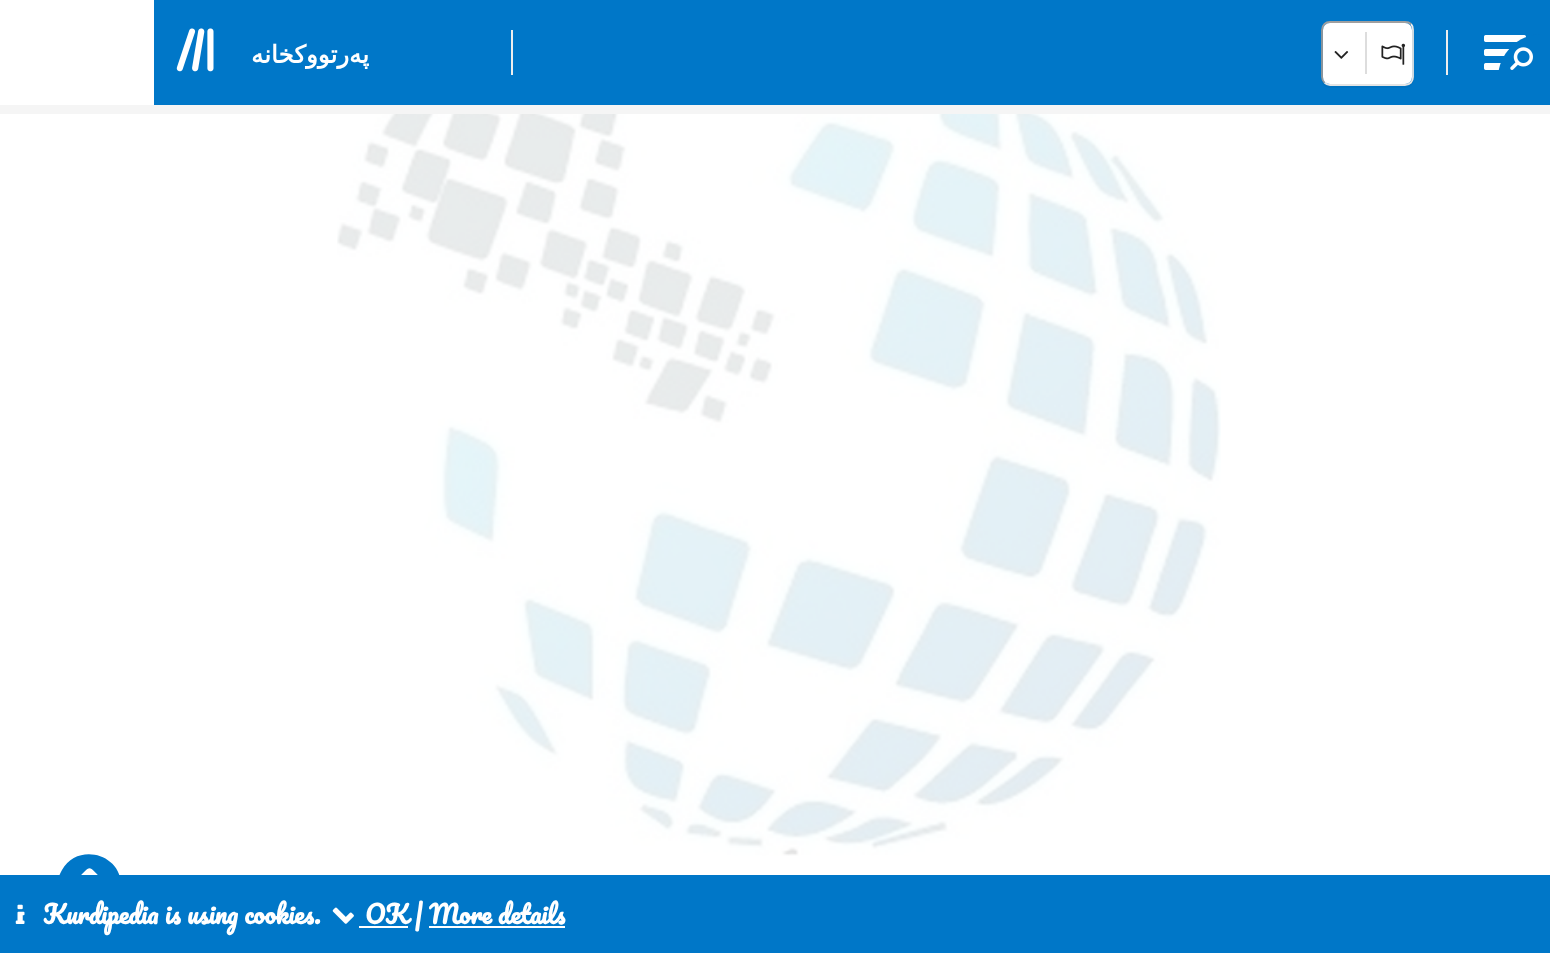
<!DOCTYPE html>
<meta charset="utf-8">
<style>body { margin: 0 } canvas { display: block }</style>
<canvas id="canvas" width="1550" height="953"></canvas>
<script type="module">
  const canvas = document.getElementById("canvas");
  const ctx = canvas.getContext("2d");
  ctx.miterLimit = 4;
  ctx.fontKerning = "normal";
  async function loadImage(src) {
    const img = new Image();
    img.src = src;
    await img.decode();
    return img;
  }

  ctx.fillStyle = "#ffffff";
  ctx.fillRect(0, 0, 1550, 953);
  ctx.fillStyle = "#0077c8";
  ctx.fillRect(154, 0, 1396, 105);
  ctx.drawImage(await loadImage("img1.png"), 176, 28, 38, 44);
  ctx.direction = "rtl";
  ctx.font = "bold 24.5px DejaVu Sans";
  ctx.fillStyle = "#ffffff";
  ctx.fillText("پەرتووکخانە", 369, 63);
  ctx.fillStyle = "#eeeeee";
  ctx.fillRect(511, 30, 2, 45);
  ctx.beginPath();
  ctx.moveTo(1411, 24);
  ctx.bezierCurveTo(1412.5, 25.5, 1413, 27.5, 1413, 30);
  ctx.lineTo(1413, 77);
  ctx.bezierCurveTo(1413, 79, 1412.5, 81, 1411, 82.5);
  ctx.bezierCurveTo(1409.5, 84, 1407.5, 85, 1405, 85);
  ctx.lineTo(1330, 85);
  ctx.bezierCurveTo(1328, 85, 1326, 84, 1324.5, 82.5);
  ctx.strokeStyle = "#eeeeee";
  ctx.lineWidth = 1.8;
  ctx.stroke();
  ctx.beginPath();
  ctx.moveTo(1324.5, 82.5);
  ctx.bezierCurveTo(1323, 81, 1322, 79, 1322, 77);
  ctx.lineTo(1322, 30);
  ctx.bezierCurveTo(1322, 27.5, 1323, 25.5, 1324.5, 24);
  ctx.bezierCurveTo(1326, 22.5, 1328, 22, 1330, 22);
  ctx.lineTo(1405, 22);
  ctx.bezierCurveTo(1407.5, 22, 1409.5, 22.5, 1411, 24);
  ctx.strokeStyle = "#9f9f9f";
  ctx.stroke();
  ctx.fillStyle = "rgba(0, 0, 0, 0.04)";
  ctx.beginPath();
  ctx.moveTo(1326, 24);
  ctx.bezierCurveTo(1323, 25, 1321, 28, 1321, 32);
  ctx.lineTo(1321, 79);
  ctx.bezierCurveTo(1321, 84, 1325, 88, 1330, 88);
  ctx.lineTo(1405, 88);
  ctx.bezierCurveTo(1410, 88, 1414, 84, 1414, 79);
  ctx.lineTo(1414, 32);
  ctx.bezierCurveTo(1414, 29, 1412, 26, 1410, 24);
  ctx.bezierCurveTo(1411, 26, 1412, 28, 1412, 30);
  ctx.lineTo(1412, 77);
  ctx.bezierCurveTo(1412, 81, 1409, 84, 1405, 84);
  ctx.lineTo(1330, 84);
  ctx.bezierCurveTo(1326, 84, 1323, 81, 1323, 77);
  ctx.lineTo(1323, 30);
  ctx.bezierCurveTo(1323, 27, 1324, 25, 1326, 24);
  ctx.closePath();
  ctx.fill();
  ctx.fillStyle = "#ffffff";
  ctx.beginPath();
  ctx.roundRect(1323, 23, 89, 61, 7);
  ctx.fill();
  ctx.drawImage(await loadImage("img2.png"), 1334, 51, 15, 8);
  ctx.fillStyle = "#dddddd";
  ctx.fillRect(1365, 32, 2, 42);
  ctx.drawImage(await loadImage("img3.png"), 1381, 43, 25, 22);
  ctx.fillStyle = "#eeeeee";
  ctx.fillRect(1446, 30, 2, 45);
  ctx.drawImage(await loadImage("img5.png"), 1484, 35, 42, 35);
  ctx.fillStyle = "#0077c8";
  ctx.beginPath();
  ctx.moveTo(1547, 34);
  ctx.lineTo(1542, 34);
  ctx.bezierCurveTo(1518, 34, 1498, 54, 1498, 78);
  ctx.lineTo(1498, 83);
  ctx.lineTo(1547, 83);
  ctx.closePath();
  ctx.fill();
  ctx.drawImage(await loadImage("img4.png"), 1510, 47, 23, 23);
  ctx.fillStyle = "#f5f5f5";
  ctx.fillRect(0, 105, 1550, 9);
  ctx.drawImage(await loadImage("img6.png"), 337, 114, 884, 742);
  ctx.fillStyle = "#0077c8";
  ctx.beginPath();
  ctx.moveTo(73, 895);
  ctx.bezierCurveTo(65, 888, 67, 890, 75, 881);
  ctx.bezierCurveTo(93, 864, 86, 864, 104, 881);
  ctx.bezierCurveTo(107, 885, 113, 888, 109, 892);
  ctx.bezierCurveTo(104, 897, 104, 898, 100, 893);
  ctx.lineTo(89, 883);
  ctx.lineTo(81, 891);
  ctx.bezierCurveTo(79, 893, 76, 898, 73, 895);
  ctx.closePath();
  ctx.moveTo(62, 870);
  ctx.bezierCurveTo(59, 875, 57, 881, 58, 888);
  ctx.bezierCurveTo(60, 918, 101, 928, 117, 901);
  ctx.bezierCurveTo(120, 896, 121, 890, 121, 883);
  ctx.bezierCurveTo(119, 853, 77, 843, 62, 870);
  ctx.closePath();
  ctx.fill();
  ctx.fillRect(0, 875, 1550, 78);
  ctx.drawImage(await loadImage("img7.png"), 15, 904, 10, 20);
  ctx.direction = "ltr";
  ctx.font = "bold 24.5px Pacifico";
  ctx.fillStyle = "#ffffff";
  ctx.fillText("Kurdipedia is using cookies.", 43, 924);
  ctx.drawImage(await loadImage("img8.png"), 332, 907, 22, 17);
  ctx.fillRect(359, 926, 49, 2);
  ctx.fillText("OK | More details", 365, 924);
  ctx.fillRect(429, 926, 136, 2);
</script>
